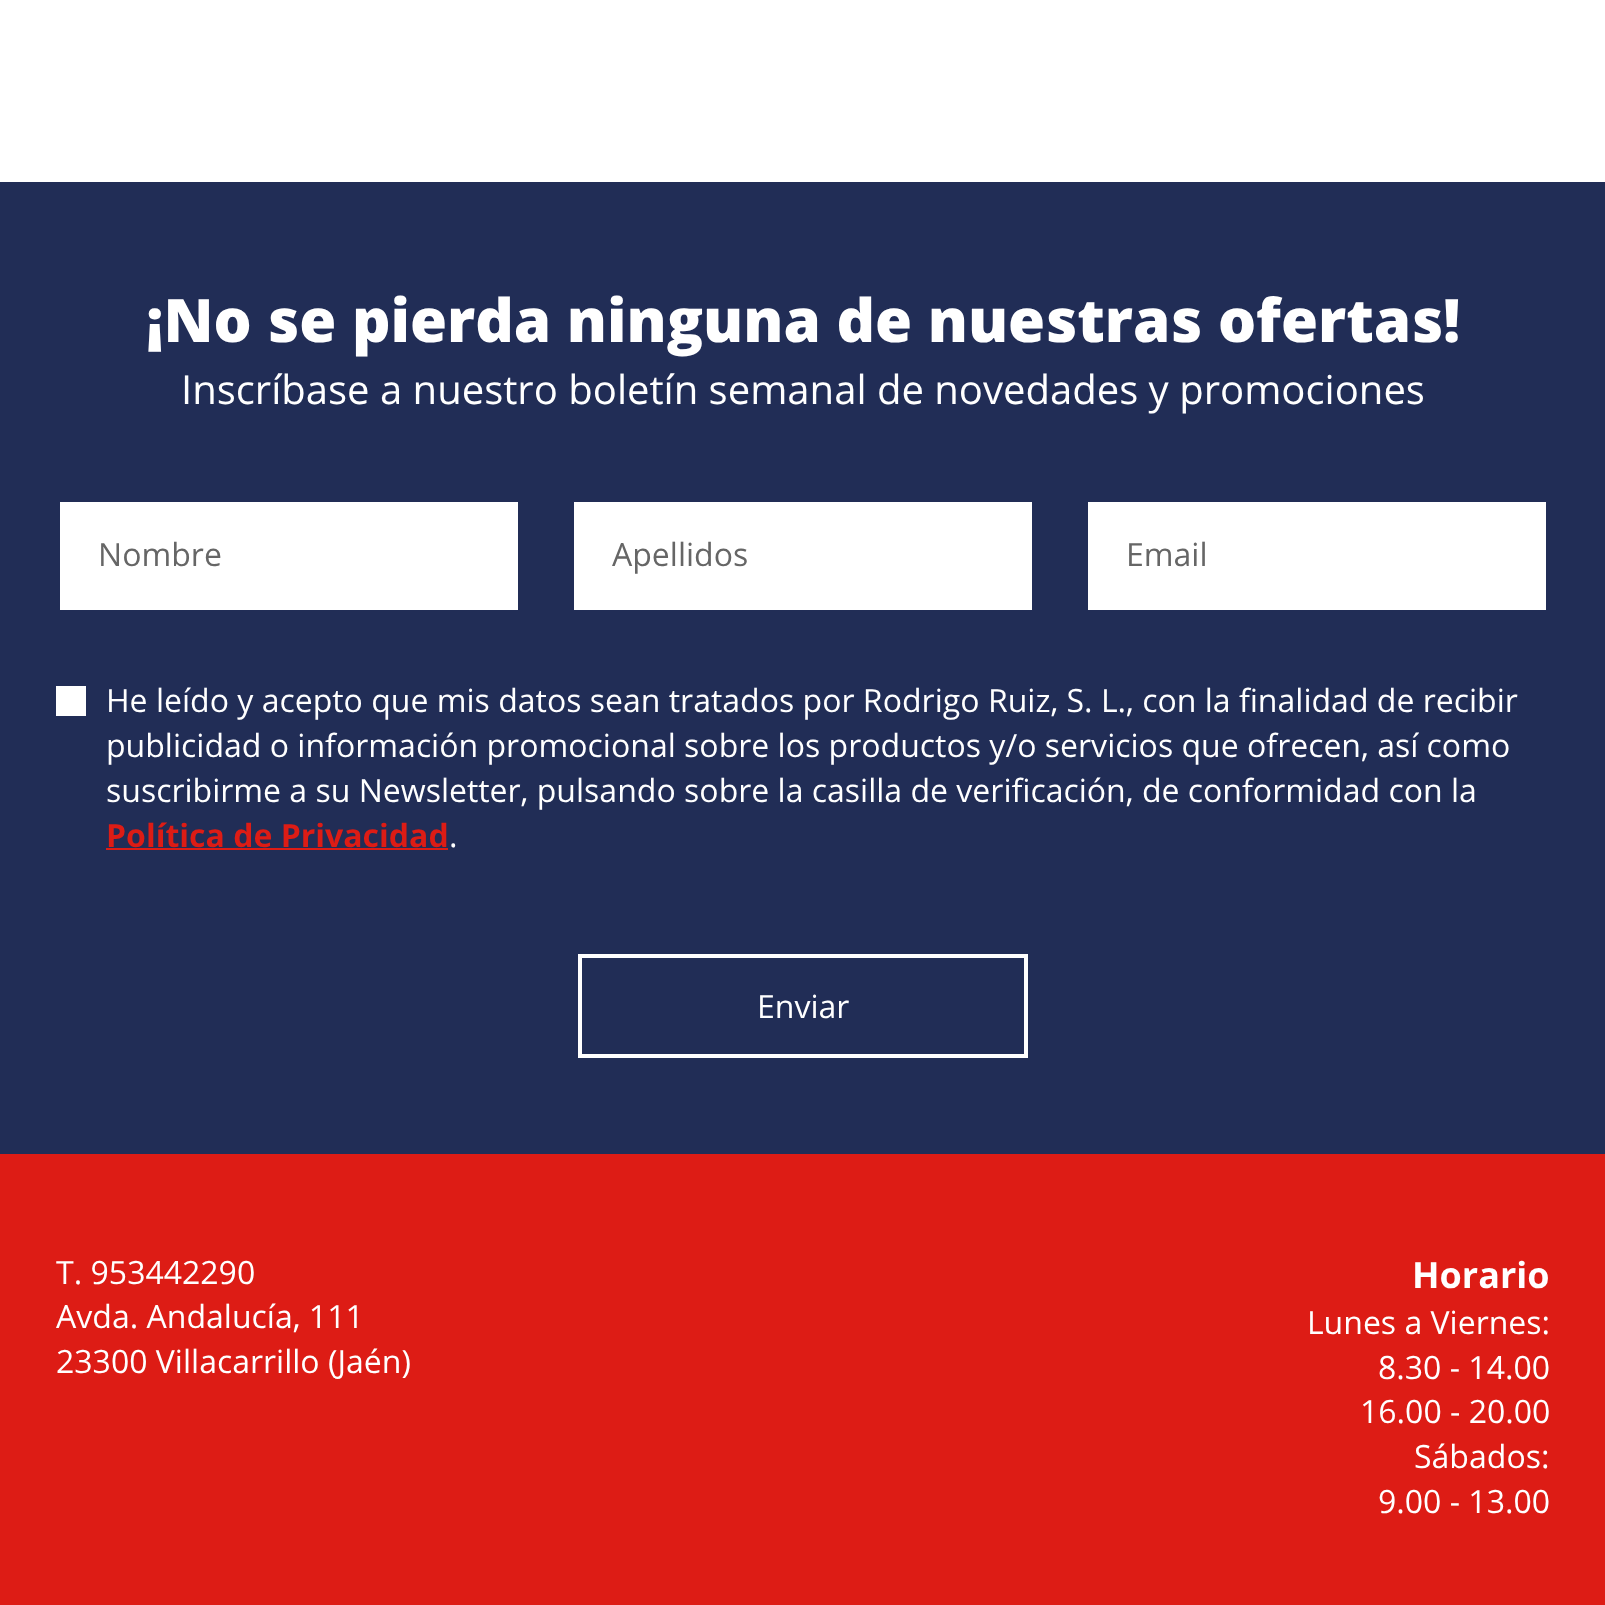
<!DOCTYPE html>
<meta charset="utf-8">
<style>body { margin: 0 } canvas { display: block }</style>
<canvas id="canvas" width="1605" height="1605"></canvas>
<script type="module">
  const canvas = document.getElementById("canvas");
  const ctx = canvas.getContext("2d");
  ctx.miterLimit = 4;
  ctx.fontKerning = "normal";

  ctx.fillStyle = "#ffffff";
  ctx.fillRect(0, 0, 1605, 1605);
  ctx.fillStyle = "#212d56";
  ctx.fillRect(0, 182, 1605, 972);
  ctx.font = "800 60px Open Sans";
  ctx.fillStyle = "#ffffff";
  ctx.fillText("¡No se pierda ninguna de nuestras ofertas!", 146, 342);
  ctx.font = "40px Open Sans";
  ctx.fillText("Inscríbase a nuestro boletín semanal de novedades y promociones", 181, 404);
  ctx.fillRect(60, 502, 458, 108);
  ctx.font = "32px Open Sans";
  ctx.fillStyle = "#666666";
  ctx.fillText("Nombre", 98, 566);
  ctx.fillStyle = "#ffffff";
  ctx.fillRect(574, 502, 458, 108);
  ctx.fillStyle = "#666666";
  ctx.fillText("Apellidos", 612, 566);
  ctx.fillStyle = "#ffffff";
  ctx.fillRect(1088, 502, 458, 108);
  ctx.fillStyle = "#666666";
  ctx.fillText("Email", 1126, 566);
  ctx.fillStyle = "#ffffff";
  ctx.fillRect(56, 686, 30, 30);
  ctx.fillText("He leído y acepto que mis datos sean tratados por Rodrigo Ruiz, S. L., con la finalidad de recibir", 106, 712);
  ctx.fillText("publicidad o información promocional sobre los productos y/o servicios que ofrecen, así como", 106, 757);
  ctx.fillText("suscribirme a su Newsletter, pulsando sobre la casilla de verificación, de conformidad con la", 106, 802);
  ctx.font = "bold 32px Open Sans";
  ctx.fillStyle = "#dd1c15";
  ctx.fillText("Política de Privacidad", 106, 847);
  ctx.fillRect(106, 848, 342, 2);
  ctx.font = "32px Open Sans";
  ctx.fillStyle = "#ffffff";
  ctx.fillText(".", 449, 847);
  ctx.strokeStyle = "#ffffff";
  ctx.lineWidth = 4;
  ctx.strokeRect(580, 956, 446, 100);
  ctx.fillText("Enviar", 757, 1018);
  ctx.fillStyle = "#dd1c15";
  ctx.fillRect(0, 1154, 1605, 451);
  ctx.fillStyle = "#ffffff";
  ctx.fillText("T. 953442290", 56, 1284);
  ctx.fillText("Avda. Andalucía, 111", 56, 1328);
  ctx.fillText("23300 Villacarrillo (Jaén)", 56, 1373);
  ctx.font = "bold 36px Open Sans";
  ctx.fillText("Horario", 1412, 1288);
  ctx.font = "32px Open Sans";
  ctx.fillText("Lunes a Viernes:", 1307, 1334);
  ctx.fillText("8.30 - 14.00", 1378, 1379);
  ctx.fillText("16.00 - 20.00", 1360, 1423);
  ctx.fillText("Sábados:", 1414, 1468);
  ctx.fillText("9.00 - 13.00", 1378, 1513);
</script>
